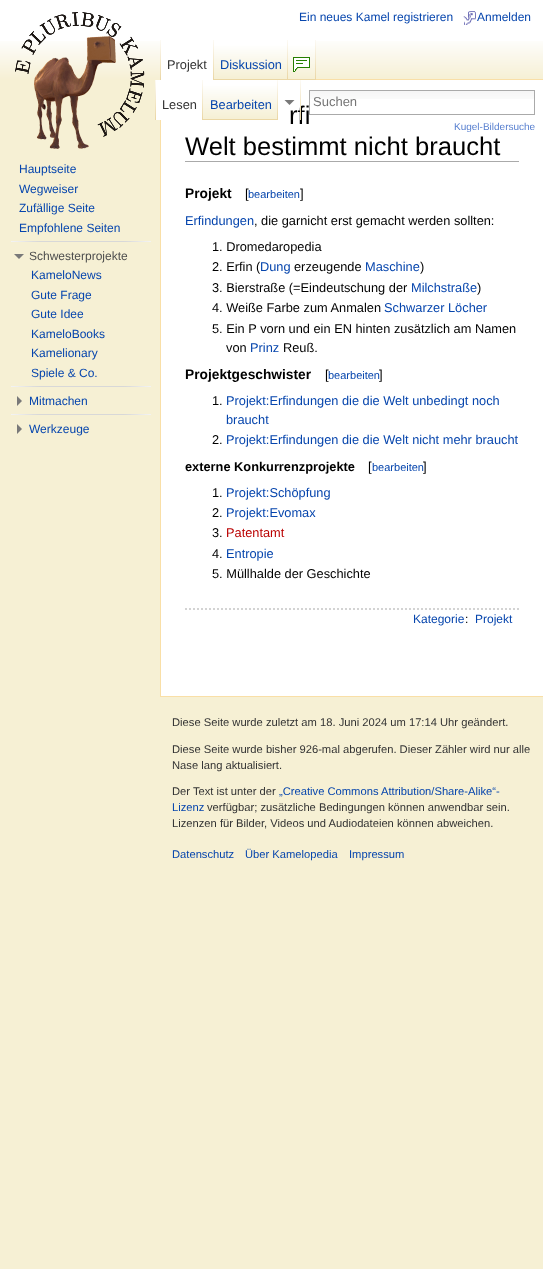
<!DOCTYPE html>
<meta charset="utf-8">
<style>body { margin: 0 } canvas { display: block }</style>
<canvas id="canvas" width="543" height="1269"></canvas>
<script type="module">
  const canvas = document.getElementById("canvas");
  const ctx = canvas.getContext("2d");
  ctx.miterLimit = 4;
  ctx.fontKerning = "normal";
  async function loadImage(src) {
    const img = new Image();
    img.src = src;
    await img.decode();
    return img;
  }

  ctx.fillStyle = "#f6f0d4";
  ctx.fillRect(0, 0, 543, 1269);
  ctx.fillStyle = "#ffffff";
  ctx.fillRect(0, 0, 543, 41);
  ctx.drawImage(await loadImage("img1.png"), 0, 41, 543, 39);
  ctx.font = "12px Liberation Sans";
  ctx.fillStyle = "#0645ad";
  ctx.fillText("Ein neues Kamel registrieren", 299, 21);
  ctx.drawImage(await loadImage("img2.png"), 463, 11, 13, 14);
  ctx.fillText("Anmelden", 477, 21);
  ctx.drawImage(await loadImage("img3.png"), 160, 40, 1, 40);
  ctx.fillStyle = "#ffffff";
  ctx.fillRect(161, 41, 52, 39);
  ctx.drawImage(await loadImage("img3.png"), 213, 40, 1, 40);
  ctx.font = "12.8px Liberation Sans";
  ctx.fillStyle = "#333333";
  ctx.fillText("Projekt", 167, 69);
  ctx.drawImage(await loadImage("img4.png"), 214, 40, 74, 40);
  ctx.drawImage(await loadImage("img5.png"), 287, 40, 1, 39);
  ctx.fillStyle = "#0645ad";
  ctx.fillText("Diskussion", 220, 69);
  ctx.drawImage(await loadImage("img6.png"), 288, 40, 28, 40);
  ctx.drawImage(await loadImage("img7.png"), 315, 40, 1, 39);
  ctx.drawImage(await loadImage("img8.png"), 293, 57, 17, 15);
  ctx.drawImage(await loadImage("img3.png"), 155, 80, 1, 40);
  ctx.fillStyle = "#ffffff";
  ctx.fillRect(156, 80, 5, 40);
  ctx.fillRect(161, 80, 382, 616);
  ctx.drawImage(await loadImage("img3.png"), 202, 80, 1, 40);
  ctx.fillStyle = "#333333";
  ctx.fillText("Lesen", 162, 109);
  ctx.drawImage(await loadImage("img9.png"), 203, 80, 75, 40);
  ctx.drawImage(await loadImage("img5.png"), 277, 80, 1, 39);
  ctx.fillStyle = "#0645ad";
  ctx.fillText("Bearbeiten", 210, 109);
  ctx.fillStyle = "#797979";
  ctx.beginPath();
  ctx.moveTo(294.5, 100);
  ctx.lineTo(289.5, 105);
  ctx.lineTo(284.5, 100);
  ctx.closePath();
  ctx.fill();
  ctx.font = "25.6px Liberation Sans";
  ctx.fillStyle = "#000000";
  ctx.fillText("rfi", 289, 124);
  ctx.drawImage(await loadImage("img3.png"), 300, 80, 1, 40);
  ctx.drawImage(await loadImage("img10.png"), 310, 91, 224, 8);
  ctx.strokeStyle = "#aaaaaa";
  ctx.strokeRect(309.5, 90.5, 225, 24);
  ctx.font = "13px Liberation Sans";
  ctx.fillStyle = "#757575";
  ctx.fillText("Suchen", 313, 106);
  ctx.font = "10px Liberation Sans";
  ctx.fillStyle = "#577fcf";
  ctx.fillText("Kugel-Bildersuche", 454, 130);
  ctx.drawImage(await loadImage("img11.png"), 15, 12, 130, 137);
  ctx.font = "12px Liberation Sans";
  ctx.fillStyle = "#0645ad";
  ctx.fillText("Hauptseite", 19, 173);
  ctx.fillText("Wegweiser", 19, 193);
  ctx.fillText("Zufällige Seite", 19, 212);
  ctx.fillText("Empfohlene Seiten", 19, 232);
  ctx.drawImage(await loadImage("img12.png"), 11, 241, 140, 1);
  ctx.fillStyle = "#797979";
  ctx.beginPath();
  ctx.moveTo(24, 254);
  ctx.lineTo(19, 259);
  ctx.lineTo(14, 254);
  ctx.closePath();
  ctx.fill();
  ctx.fillStyle = "#4d4d4d";
  ctx.fillText("Schwesterprojekte", 29, 260);
  ctx.fillStyle = "#0645ad";
  ctx.fillText("KameloNews", 31, 279);
  ctx.fillText("Gute Frage", 31, 299);
  ctx.fillText("Gute Idee", 31, 318);
  ctx.fillText("KameloBooks", 31, 338);
  ctx.fillText("Kamelionary", 31, 357);
  ctx.fillText("Spiele & Co.", 31, 377);
  ctx.drawImage(await loadImage("img12.png"), 11, 386, 140, 1);
  ctx.fillStyle = "#797979";
  ctx.beginPath();
  ctx.moveTo(17, 396);
  ctx.lineTo(22, 401);
  ctx.lineTo(17, 406);
  ctx.closePath();
  ctx.fill();
  ctx.fillStyle = "#0645ad";
  ctx.fillText("Mitmachen", 29, 405);
  ctx.drawImage(await loadImage("img12.png"), 11, 414, 140, 1);
  ctx.fillStyle = "#797979";
  ctx.beginPath();
  ctx.moveTo(17, 424);
  ctx.lineTo(22, 429);
  ctx.lineTo(17, 434);
  ctx.closePath();
  ctx.fill();
  ctx.fillStyle = "#0645ad";
  ctx.fillText("Werkzeuge", 29, 433);
  ctx.fillStyle = "#f9dfa7";
  ctx.fillRect(316, 79, 227, 1);
  ctx.fillRect(160, 696, 383, 1);
  ctx.fillRect(160, 120, 1, 577);
  ctx.fillStyle = "#aaaaaa";
  ctx.fillRect(185, 161, 334, 1);
  ctx.font = "25.6px Liberation Sans";
  ctx.fillStyle = "#000000";
  ctx.fillText("Welt bestimmt nicht braucht", 185, 155);
  ctx.font = "bold 13.75px Liberation Sans";
  ctx.fillText("Projekt", 185, 198);
  ctx.font = "13px Liberation Sans";
  ctx.fillText("[", 245, 198);
  ctx.font = "11px Liberation Sans";
  ctx.fillStyle = "#0645ad";
  ctx.fillText("bearbeiten", 248, 198);
  ctx.font = "13px Liberation Sans";
  ctx.fillStyle = "#000000";
  ctx.fillText("]", 300, 198);
  ctx.font = "12.8px Liberation Sans";
  ctx.fillStyle = "#0645ad";
  ctx.fillText("Erfindungen", 185, 225);
  ctx.fillStyle = "#000000";
  ctx.fillText(", die garnicht erst gemacht werden sollten:", 254, 225);
  ctx.fillText("1. Dromedaropedia", 212, 251);
  ctx.fillText("2. Erfin (", 212, 271);
  ctx.fillStyle = "#0645ad";
  ctx.fillText("Dung", 260, 271);
  ctx.fillStyle = "#000000";
  ctx.fillText("erzeugende", 294, 271);
  ctx.fillStyle = "#0645ad";
  ctx.fillText("Maschine", 365, 271);
  ctx.fillStyle = "#000000";
  ctx.fillText(")", 420, 271);
  ctx.fillText("3. Bierstraße (=Eindeutschung der", 212, 292);
  ctx.fillStyle = "#0645ad";
  ctx.fillText("Milchstraße", 411, 292);
  ctx.fillStyle = "#000000";
  ctx.fillText(")", 477, 292);
  ctx.fillText("4. Weiße Farbe zum Anmalen", 212, 312);
  ctx.fillStyle = "#0645ad";
  ctx.fillText("Schwarzer Löcher", 384, 312);
  ctx.fillStyle = "#000000";
  ctx.fillText("5. Ein P vorn und ein EN hinten zusätzlich am Namen", 212, 333);
  ctx.fillText("von", 226, 352);
  ctx.fillStyle = "#0645ad";
  ctx.fillText("Prinz", 250, 352);
  ctx.fillStyle = "#000000";
  ctx.fillText("Reuß.", 283, 352);
  ctx.font = "bold 13.75px Liberation Sans";
  ctx.fillText("Projektgeschwister", 185, 379);
  ctx.font = "13px Liberation Sans";
  ctx.fillText("[", 325, 379);
  ctx.font = "11px Liberation Sans";
  ctx.fillStyle = "#0645ad";
  ctx.fillText("bearbeiten", 328, 379);
  ctx.font = "13px Liberation Sans";
  ctx.fillStyle = "#000000";
  ctx.fillText("]", 379, 379);
  ctx.font = "12.8px Liberation Sans";
  ctx.fillText("1.", 212, 405);
  ctx.fillStyle = "#0645ad";
  ctx.fillText("Projekt:Erfindungen die die Welt unbedingt noch", 226, 405);
  ctx.fillText("braucht", 226, 424);
  ctx.fillStyle = "#000000";
  ctx.fillText("2.", 212, 444);
  ctx.fillStyle = "#0645ad";
  ctx.fillText("Projekt:Erfindungen die die Welt nicht mehr braucht", 226, 444);
  ctx.font = "bold 12.8px Liberation Sans";
  ctx.fillStyle = "#000000";
  ctx.fillText("externe Konkurrenzprojekte", 185, 471);
  ctx.font = "13px Liberation Sans";
  ctx.fillText("[", 368, 471);
  ctx.font = "11px Liberation Sans";
  ctx.fillStyle = "#0645ad";
  ctx.fillText("bearbeiten", 372, 471);
  ctx.font = "13px Liberation Sans";
  ctx.fillStyle = "#000000";
  ctx.fillText("]", 423, 471);
  ctx.font = "12.8px Liberation Sans";
  ctx.fillText("1.", 212, 497);
  ctx.fillStyle = "#0645ad";
  ctx.fillText("Projekt:Schöpfung", 226, 497);
  ctx.fillStyle = "#000000";
  ctx.fillText("2.", 212, 517);
  ctx.fillStyle = "#0645ad";
  ctx.fillText("Projekt:Evomax", 226, 517);
  ctx.fillStyle = "#000000";
  ctx.fillText("3.", 212, 537);
  ctx.fillStyle = "#ba0000";
  ctx.fillText("Patentamt", 226, 537);
  ctx.fillStyle = "#000000";
  ctx.fillText("4.", 212, 558);
  ctx.fillStyle = "#0645ad";
  ctx.fillText("Entropie", 226, 558);
  ctx.fillStyle = "#000000";
  ctx.fillText("5. Müllhalde der Geschichte", 212, 578);
  ctx.beginPath();
  ctx.moveTo(185, 609);
  ctx.lineTo(519, 609);
  ctx.strokeStyle = "#d3d3d3";
  ctx.lineWidth = 2;
  ctx.setLineDash([2, 2]);
  ctx.stroke();
  ctx.font = "12px Liberation Sans";
  ctx.fillStyle = "#0645ad";
  ctx.fillText("Kategorie", 413, 623);
  ctx.fillStyle = "#000000";
  ctx.fillText(":", 465, 623);
  ctx.fillStyle = "#0645ad";
  ctx.fillText("Projekt", 475, 623);
  ctx.font = "11.2px Liberation Sans";
  ctx.fillStyle = "#333333";
  ctx.fillText("Diese Seite wurde zuletzt am 18. Juni 2024 um 17:14 Uhr geändert.", 172, 726);
  ctx.fillText("Diese Seite wurde bisher 926-mal abgerufen. Dieser Zähler wird nur alle", 172, 753);
  ctx.fillText("Nase lang aktualisiert.", 172, 769);
  ctx.fillText("Der Text ist unter der", 172, 795);
  ctx.fillStyle = "#0645ad";
  ctx.fillText("„Creative Commons Attribution/Share-Alike“-", 279, 795);
  ctx.fillText("Lizenz", 172, 811);
  ctx.fillStyle = "#333333";
  ctx.fillText("verfügbar; zusätzliche Bedingungen können anwendbar sein.", 207, 811);
  ctx.fillText("Lizenzen für Bilder, Videos und Audiodateien können abweichen.", 172, 827);
  ctx.fillStyle = "#0645ad";
  ctx.fillText("Datenschutz", 172, 858);
  ctx.fillText("Über Kamelopedia", 245, 858);
  ctx.fillText("Impressum", 349, 858);
</script>
